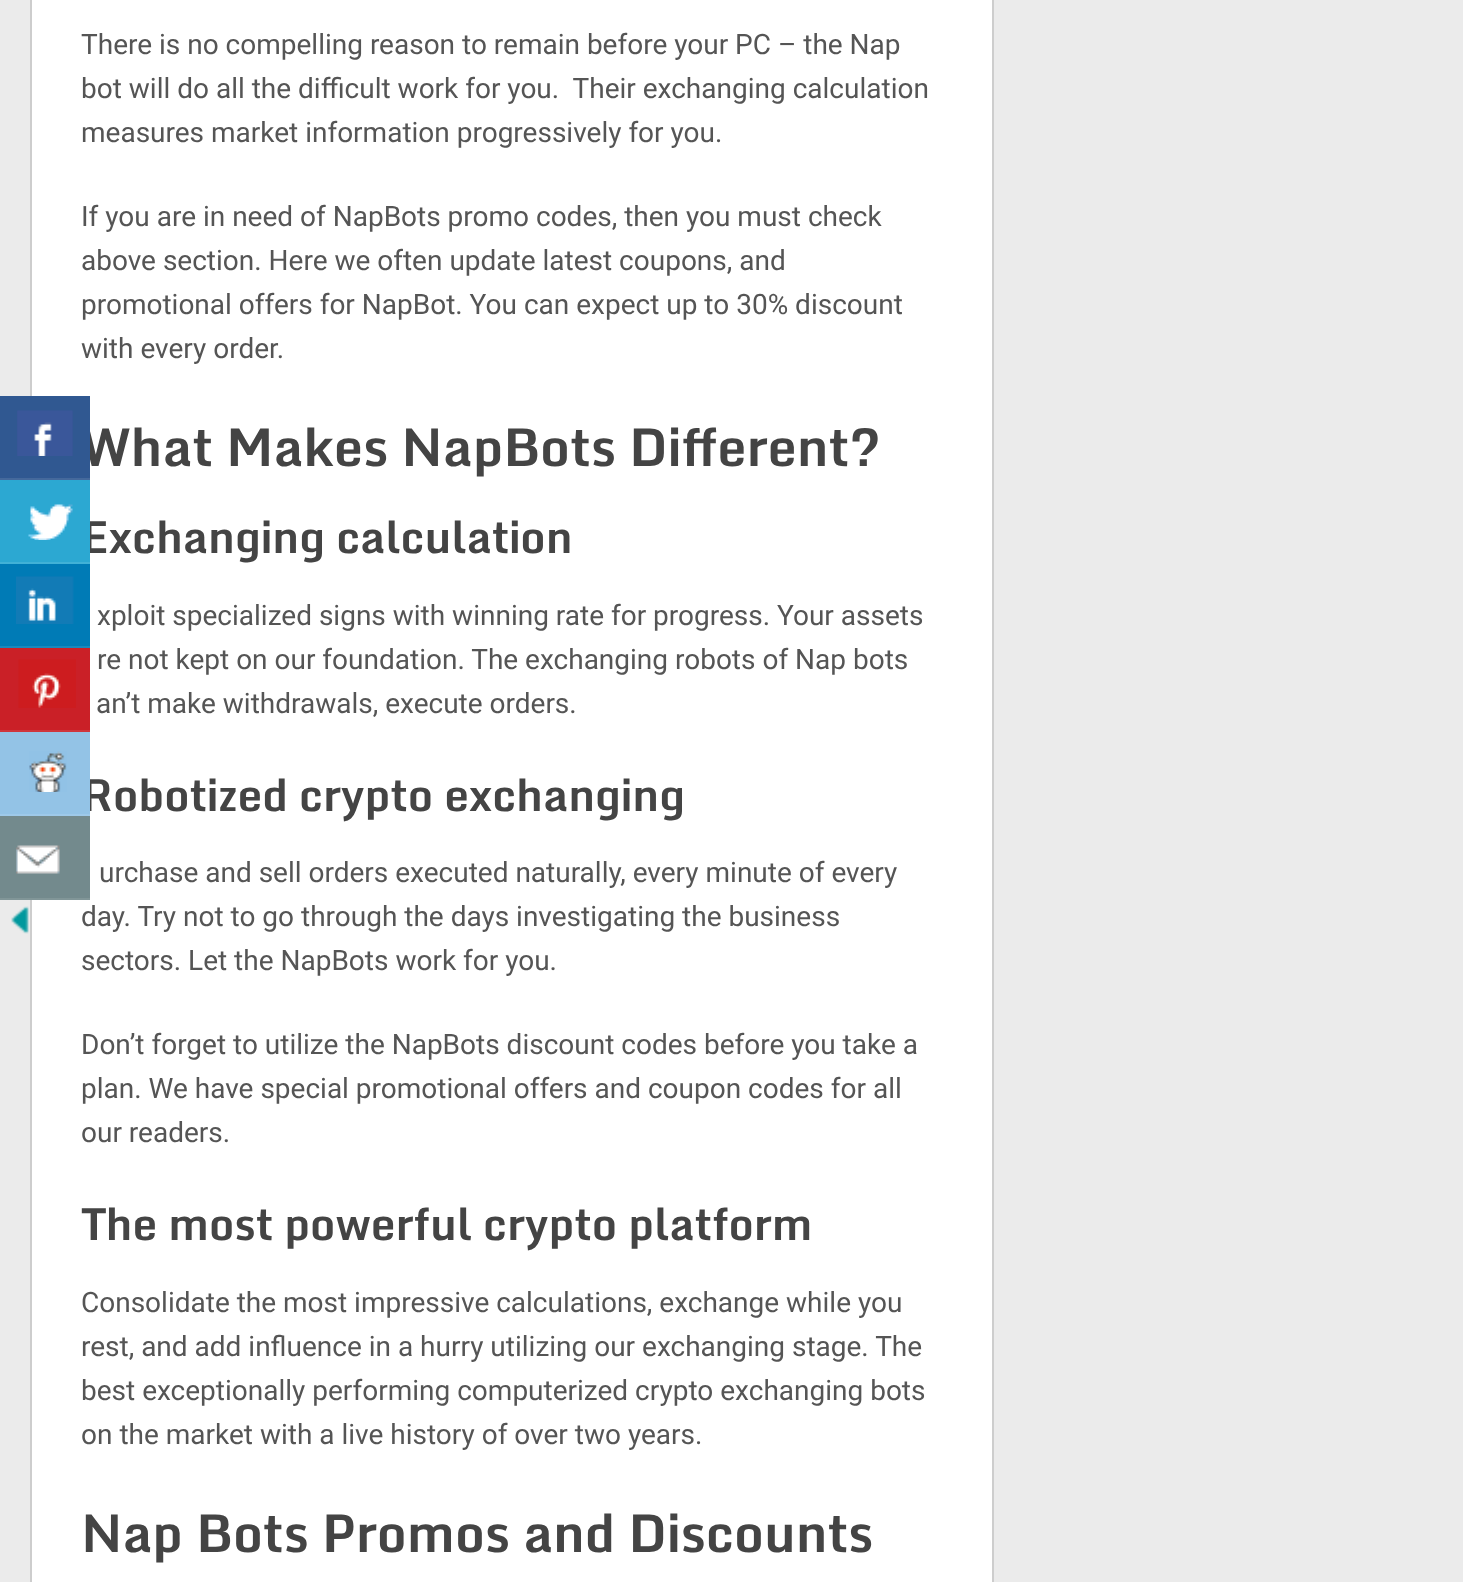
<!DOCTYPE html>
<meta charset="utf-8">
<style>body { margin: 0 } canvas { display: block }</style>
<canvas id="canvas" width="1463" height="1582"></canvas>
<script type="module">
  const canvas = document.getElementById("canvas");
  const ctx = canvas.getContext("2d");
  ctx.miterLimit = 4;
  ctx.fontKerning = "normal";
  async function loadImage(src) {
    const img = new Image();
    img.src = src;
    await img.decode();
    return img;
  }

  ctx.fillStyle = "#ebebeb";
  ctx.fillRect(0, 0, 1463, 1582);
  ctx.fillStyle = "#ffffff";
  ctx.beginPath();
  ctx.rect(31, -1, 962, 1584);
  ctx.fill();
  ctx.strokeStyle = "#cdcdcd";
  ctx.lineWidth = 2;
  ctx.stroke();
  ctx.font = "bold 52px Monda";
  ctx.fillStyle = "#444444";
  ctx.fillText("What Makes NapBots Different?", 81, 466);
  ctx.fillStyle = "#305891";
  ctx.fillRect(0, 396, 90, 82);
  ctx.fillStyle = "#45699c";
  ctx.fillRect(0, 478, 90, 2);
  ctx.drawImage(await loadImage("img1.png"), 17, 410, 56, 46);
  ctx.font = "bold 44px Monda";
  ctx.fillStyle = "#444444";
  ctx.fillText("Exchanging calculation", 81, 553);
  ctx.fillStyle = "#2ca8d2";
  ctx.fillRect(0, 480, 90, 82);
  ctx.fillStyle = "#41b1d7";
  ctx.fillRect(0, 562, 90, 2);
  ctx.drawImage(await loadImage("img2.png"), 28, 504, 45, 36);
  ctx.fillStyle = "#007bb6";
  ctx.fillRect(0, 564, 90, 82);
  ctx.fillStyle = "#1a88bd";
  ctx.fillRect(0, 646, 90, 2);
  ctx.drawImage(await loadImage("img3.png"), 16, 576, 58, 48);
  ctx.fillStyle = "#ca2027";
  ctx.fillRect(0, 648, 90, 82);
  ctx.fillStyle = "#cf363d";
  ctx.fillRect(0, 730, 90, 2);
  ctx.drawImage(await loadImage("img4.png"), 18, 659, 58, 49);
  ctx.fillStyle = "#444444";
  ctx.fillText("Robotized crypto exchanging", 81, 811);
  ctx.fillStyle = "#93c3e6";
  ctx.fillRect(0, 732, 90, 82);
  ctx.fillStyle = "#9ec9e9";
  ctx.fillRect(0, 814, 90, 2);
  ctx.drawImage(await loadImage("img5.png"), 29, 751, 38, 41);
  ctx.fillStyle = "#738a8d";
  ctx.fillRect(0, 816, 90, 82);
  ctx.fillStyle = "#819698";
  ctx.fillRect(0, 898, 90, 2);
  ctx.drawImage(await loadImage("img6.png"), 16, 845, 44, 29);
  ctx.drawImage(await loadImage("img7.png"), 11, 906, 18, 28);
  ctx.font = "28px Roboto";
  ctx.fillStyle = "#555555";
  ctx.fillText("There is no compelling reason to remain before your PC – the Nap", 81, 54);
  ctx.fillText("bot will do all the difficult work for you.  Their exchanging calculation", 81, 98);
  ctx.fillText("measures market information progressively for you.", 81, 142);
  ctx.fillText("If you are in need of NapBots promo codes, then you must check", 81, 226);
  ctx.fillText("above section. Here we often update latest coupons, and", 81, 270);
  ctx.fillText("promotional offers for NapBot. You can expect up to 30% discount", 81, 314);
  ctx.fillText("with every order.", 81, 358);
  ctx.fillText("xploit specialized signs with winning rate for progress. Your assets", 97, 625);
  ctx.fillText("re not kept on our foundation. The exchanging robots of Nap bots", 97, 669);
  ctx.fillText("an’t make withdrawals, execute orders.", 96, 713);
  ctx.fillText("urchase and sell orders executed naturally, every minute of every", 99, 882);
  ctx.fillText("day. Try not to go through the days investigating the business", 81, 926);
  ctx.fillText("sectors. Let the NapBots work for you.", 81, 970);
  ctx.fillText("Don’t forget to utilize the NapBots discount codes before you take a", 81, 1054);
  ctx.fillText("plan. We have special promotional offers and coupon codes for all", 81, 1098);
  ctx.fillText("our readers.", 81, 1142);
  ctx.font = "bold 44px Monda";
  ctx.fillStyle = "#444444";
  ctx.fillText("The most powerful crypto platform", 81, 1240);
  ctx.font = "28px Roboto";
  ctx.fillStyle = "#555555";
  ctx.fillText("Consolidate the most impressive calculations, exchange while you", 81, 1312);
  ctx.fillText("rest, and add influence in a hurry utilizing our exchanging stage. The", 81, 1356);
  ctx.fillText("best exceptionally performing computerized crypto exchanging bots", 81, 1400);
  ctx.fillText("on the market with a live history of over two years.", 81, 1444);
  ctx.font = "bold 52px Monda";
  ctx.fillStyle = "#444444";
  ctx.fillText("Nap Bots Promos and Discounts", 81, 1552);
</script>
